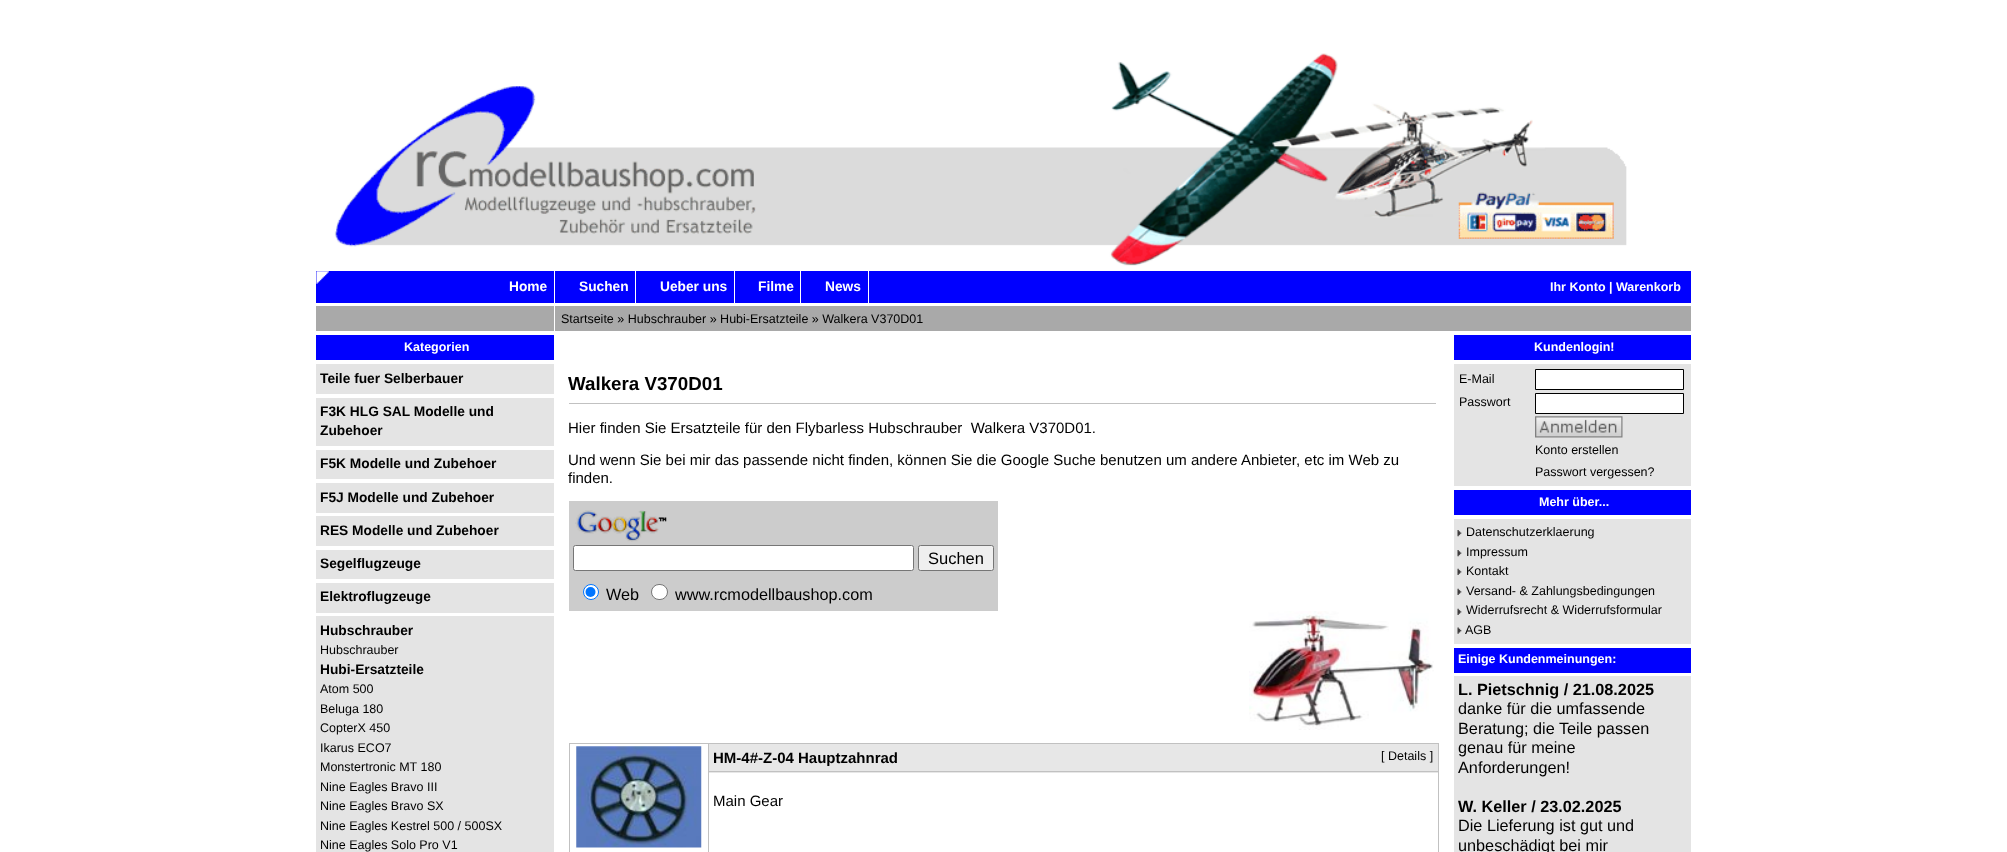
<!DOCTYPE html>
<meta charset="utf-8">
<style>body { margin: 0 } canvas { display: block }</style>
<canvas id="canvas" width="2007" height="852"></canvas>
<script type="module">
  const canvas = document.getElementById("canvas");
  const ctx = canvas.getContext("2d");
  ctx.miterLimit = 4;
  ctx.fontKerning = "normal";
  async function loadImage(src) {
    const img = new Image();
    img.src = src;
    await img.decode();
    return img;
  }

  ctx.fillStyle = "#ffffff";
  ctx.fillRect(0, 0, 2007, 852);
  ctx.drawImage(await loadImage("img1.png"), 334, 53, 1293, 213);
  ctx.fillStyle = "#0000ff";
  ctx.fillRect(316, 271, 1375, 32);
  ctx.drawImage(await loadImage("img2.png"), 316, 271, 13, 13);
  ctx.fillStyle = "#ffffff";
  ctx.fillRect(554, 271, 1, 32);
  ctx.font = "bold 13.75px Liberation Sans";
  ctx.fillText("Home", 509, 291);
  ctx.fillRect(635, 271, 1, 32);
  ctx.fillText("Suchen", 579, 291);
  ctx.fillRect(734, 271, 1, 32);
  ctx.fillText("Ueber uns", 660, 291);
  ctx.fillRect(800, 271, 1, 32);
  ctx.fillText("Filme", 758, 291);
  ctx.fillRect(868, 271, 1, 32);
  ctx.fillText("News", 825, 291);
  ctx.font = "bold 12.5px Liberation Sans";
  ctx.fillText("Ihr Konto | Warenkorb", 1550, 291);
  ctx.fillStyle = "#a9a9a9";
  ctx.fillRect(316, 306, 1375, 25);
  ctx.fillStyle = "#ffffff";
  ctx.fillRect(554, 306, 1, 25);
  ctx.font = "12.5px Liberation Sans";
  ctx.fillStyle = "#000000";
  ctx.fillText("Startseite » Hubschrauber » Hubi-Ersatzteile » Walkera V370D01", 561, 323);
  ctx.fillStyle = "#0000ff";
  ctx.fillRect(316, 335, 238, 25);
  ctx.font = "bold 12.5px Liberation Sans";
  ctx.fillStyle = "#ffffff";
  ctx.fillText("Kategorien", 404, 351);
  ctx.fillStyle = "#e4e4e4";
  ctx.fillRect(316, 364, 238, 30);
  ctx.font = "bold 13.75px Liberation Sans";
  ctx.fillStyle = "#000000";
  ctx.fillText("Teile fuer Selberbauer", 320, 383);
  ctx.fillStyle = "#e4e4e4";
  ctx.fillRect(316, 398, 238, 48);
  ctx.fillStyle = "#000000";
  ctx.fillText("F3K HLG SAL Modelle und", 320, 416);
  ctx.fillText("Zubehoer", 320, 435);
  ctx.fillStyle = "#e4e4e4";
  ctx.fillRect(316, 450, 238, 29);
  ctx.fillStyle = "#000000";
  ctx.fillText("F5K Modelle und Zubehoer", 320, 468);
  ctx.fillStyle = "#e4e4e4";
  ctx.fillRect(316, 483, 238, 30);
  ctx.fillStyle = "#000000";
  ctx.fillText("F5J Modelle und Zubehoer", 320, 502);
  ctx.fillStyle = "#e4e4e4";
  ctx.fillRect(316, 516, 238, 30);
  ctx.fillStyle = "#000000";
  ctx.fillText("RES Modelle und Zubehoer", 320, 535);
  ctx.fillStyle = "#e4e4e4";
  ctx.fillRect(316, 550, 238, 29);
  ctx.fillStyle = "#000000";
  ctx.fillText("Segelflugzeuge", 320, 568);
  ctx.fillStyle = "#e4e4e4";
  ctx.fillRect(316, 583, 238, 30);
  ctx.fillStyle = "#000000";
  ctx.fillText("Elektroflugzeuge", 320, 601);
  ctx.fillStyle = "#e4e4e4";
  ctx.fillRect(316, 616, 238, 236);
  ctx.fillStyle = "#000000";
  ctx.fillText("Hubschrauber", 320, 635);
  ctx.font = "12.5px Liberation Sans";
  ctx.fillText("Hubschrauber", 320, 654);
  ctx.font = "bold 13.75px Liberation Sans";
  ctx.fillText("Hubi-Ersatzteile", 320, 674);
  ctx.font = "12.5px Liberation Sans";
  ctx.fillText("Atom 500", 320, 693);
  ctx.fillText("Beluga 180", 320, 713);
  ctx.fillText("CopterX 450", 320, 732);
  ctx.fillText("Ikarus ECO7", 320, 752);
  ctx.fillText("Monstertronic MT 180", 320, 771);
  ctx.fillText("Nine Eagles Bravo III", 320, 791);
  ctx.fillText("Nine Eagles Bravo SX", 320, 810);
  ctx.fillText("Nine Eagles Kestrel 500 / 500SX", 320, 830);
  ctx.fillText("Nine Eagles Solo Pro V1", 320, 849);
  ctx.fillStyle = "#c1c1c1";
  ctx.fillRect(569, 403, 867, 1);
  ctx.font = "bold 18.75px Liberation Sans";
  ctx.fillStyle = "#000000";
  ctx.fillText("Walkera V370D01", 568, 390);
  ctx.font = "15px Liberation Sans";
  ctx.fillText("Hier finden Sie Ersatzteile für den Flybarless Hubschrauber  Walkera V370D01.", 568, 433);
  ctx.fillText("Und wenn Sie bei mir das passende nicht finden, können Sie die Google Suche benutzen um andere Anbieter, etc im Web zu", 568, 465);
  ctx.fillText("finden.", 568, 483);
  ctx.fillStyle = "#cccccc";
  ctx.fillRect(569, 501, 429, 110);
  ctx.drawImage(await loadImage("img3.png"), 575, 510, 92, 32);
  ctx.fillStyle = "#ffffff";
  ctx.beginPath();
  ctx.roundRect(573.5, 545.5, 340, 25, 2);
  ctx.fill();
  ctx.strokeStyle = "#767676";
  ctx.stroke();
  ctx.fillStyle = "#efefef";
  ctx.beginPath();
  ctx.roundRect(918.5, 545.5, 75, 25, 2);
  ctx.fill();
  ctx.stroke();
  ctx.font = "16.5px Liberation Sans";
  ctx.fillStyle = "#000000";
  ctx.fillText("Suchen", 928, 564);
  ctx.fillStyle = "#ffffff";
  ctx.beginPath();
  ctx.arc(591, 592, 7.5, 0, Math.PI * 2);
  ctx.fill();
  ctx.strokeStyle = "#0075ff";
  ctx.stroke();
  ctx.fillStyle = "#0075ff";
  ctx.beginPath();
  ctx.arc(590.5, 592, 5, 0, Math.PI * 2);
  ctx.fill();
  ctx.font = "16.25px Liberation Sans";
  ctx.fillStyle = "#000000";
  ctx.fillText("Web", 606, 600);
  ctx.fillStyle = "#ffffff";
  ctx.beginPath();
  ctx.roundRect(651.5, 584.5, 16, 15, 7.5);
  ctx.fill();
  ctx.strokeStyle = "#767676";
  ctx.stroke();
  ctx.fillStyle = "#000000";
  ctx.fillText("www.rcmodellbaushop.com", 675, 600);
  ctx.drawImage(await loadImage("img4.png"), 1249, 611, 185, 119);
  ctx.strokeStyle = "#c1c1c1";
  ctx.strokeRect(569.5, 743.5, 869, 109);
  ctx.drawImage(await loadImage("img5.png"), 576, 746, 126, 102);
  ctx.fillStyle = "#c1c1c1";
  ctx.fillRect(708, 744, 1, 108);
  ctx.fillStyle = "#e7e7e7";
  ctx.fillRect(709, 744, 729, 29);
  ctx.fillStyle = "#c1c1c1";
  ctx.fillRect(709, 771, 729, 1);
  ctx.font = "bold 15px Liberation Sans";
  ctx.fillStyle = "#000000";
  ctx.fillText("HM-4#-Z-04 Hauptzahnrad", 713, 763);
  ctx.font = "12.5px Liberation Sans";
  ctx.fillText("[ Details ]", 1381, 760);
  ctx.font = "15px Liberation Sans";
  ctx.fillText("Main Gear", 713, 806);
  ctx.fillStyle = "#0000ff";
  ctx.fillRect(1454, 335, 237, 25);
  ctx.font = "bold 12.5px Liberation Sans";
  ctx.fillStyle = "#ffffff";
  ctx.fillText("Kundenlogin!", 1534, 351);
  ctx.fillStyle = "#e4e4e4";
  ctx.fillRect(1454, 364, 237, 122);
  ctx.font = "12.5px Liberation Sans";
  ctx.fillStyle = "#000000";
  ctx.fillText("E-Mail", 1459, 383);
  ctx.fillStyle = "#ffffff";
  ctx.beginPath();
  ctx.rect(1535.5, 369.5, 148, 20);
  ctx.fill();
  ctx.strokeStyle = "#000000";
  ctx.stroke();
  ctx.fillStyle = "#000000";
  ctx.fillText("Passwort", 1459, 406);
  ctx.fillStyle = "#ffffff";
  ctx.beginPath();
  ctx.rect(1535.5, 393.5, 148, 20);
  ctx.fill();
  ctx.stroke();
  ctx.drawImage(await loadImage("img6.png"), 1535, 416, 88, 22);
  ctx.fillStyle = "#000000";
  ctx.fillText("Konto erstellen", 1535, 454);
  ctx.fillText("Passwort vergessen?", 1535, 476);
  ctx.fillStyle = "#0000ff";
  ctx.fillRect(1454, 490, 237, 25);
  ctx.font = "bold 12.5px Liberation Sans";
  ctx.fillStyle = "#ffffff";
  ctx.fillText("Mehr über...", 1539, 506);
  ctx.fillStyle = "#e4e4e4";
  ctx.fillRect(1454, 519, 237, 125);
  ctx.drawImage(await loadImage("img7.png"), 1457, 530, 5, 7);
  ctx.font = "12.5px Liberation Sans";
  ctx.fillStyle = "#000000";
  ctx.fillText("Datenschutzerklaerung", 1466, 536);
  ctx.drawImage(await loadImage("img7.png"), 1457, 550, 5, 7);
  ctx.fillText("Impressum", 1466, 556);
  ctx.drawImage(await loadImage("img8.png"), 1457, 568, 5, 7);
  ctx.fillText("Kontakt", 1466, 575);
  ctx.drawImage(await loadImage("img8.png"), 1457, 588, 5, 7);
  ctx.fillText("Versand- & Zahlungsbedingungen", 1466, 595);
  ctx.drawImage(await loadImage("img8.png"), 1457, 608, 5, 7);
  ctx.fillText("Widerrufsrecht & Widerrufsformular", 1466, 614);
  ctx.drawImage(await loadImage("img9.png"), 1457, 627, 5, 7);
  ctx.fillText("AGB", 1465, 634);
  ctx.fillStyle = "#0000ff";
  ctx.fillRect(1454, 648, 237, 25);
  ctx.font = "bold 12.5px Liberation Sans";
  ctx.fillStyle = "#ffffff";
  ctx.fillText("Einige Kundenmeinungen:", 1458, 663);
  ctx.fillStyle = "#e4e4e4";
  ctx.fillRect(1454, 676, 237, 176);
  ctx.font = "bold 16.25px Liberation Sans";
  ctx.fillStyle = "#000000";
  ctx.fillText("L. Pietschnig / 21.08.2025", 1458, 695);
  ctx.font = "16.25px Liberation Sans";
  ctx.fillText("danke für die umfassende", 1458, 714);
  ctx.fillText("Beratung; die Teile passen", 1458, 734);
  ctx.fillText("genau für meine", 1458, 753);
  ctx.fillText("Anforderungen!", 1458, 773);
  ctx.font = "bold 16.25px Liberation Sans";
  ctx.fillText("W. Keller / 23.02.2025", 1458, 812);
  ctx.font = "16.25px Liberation Sans";
  ctx.fillText("Die Lieferung ist gut und", 1458, 831);
  ctx.fillText("unbeschädigt bei mir", 1458, 851);
</script>
